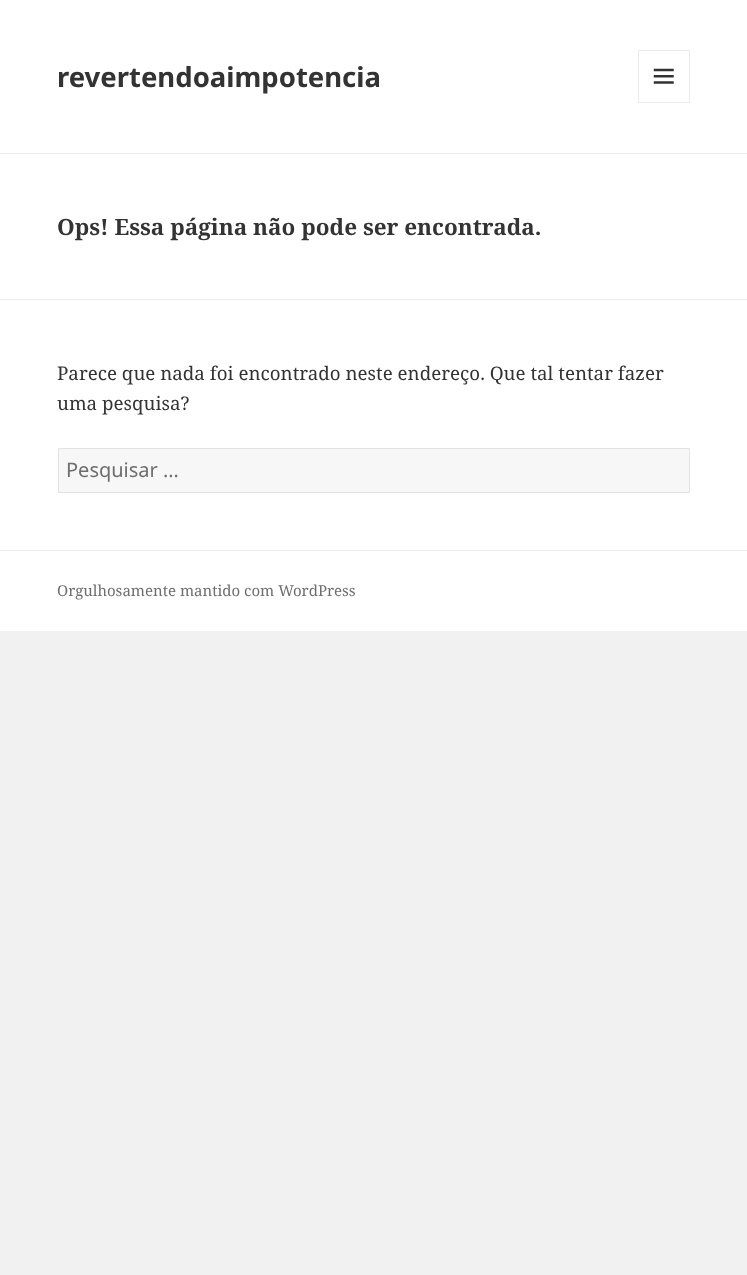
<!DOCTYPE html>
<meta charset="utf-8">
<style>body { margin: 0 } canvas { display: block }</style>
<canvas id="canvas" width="747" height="1275"></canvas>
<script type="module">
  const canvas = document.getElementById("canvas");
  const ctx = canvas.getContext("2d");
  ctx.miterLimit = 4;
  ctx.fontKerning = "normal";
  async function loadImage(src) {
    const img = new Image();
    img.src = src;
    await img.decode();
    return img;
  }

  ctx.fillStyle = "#f1f1f1";
  ctx.fillRect(0, 0, 747, 1275);
  ctx.fillStyle = "#ffffff";
  ctx.fillRect(0, 0, 747, 153);
  ctx.fillStyle = "#ebebeb";
  ctx.fillRect(0, 153, 747, 1);
  ctx.font = "bold 27.5px Noto Sans";
  ctx.fillStyle = "#333333";
  ctx.fillText("revertendoaimpotencia", 57, 87);
  ctx.strokeStyle = "#ebebeb";
  ctx.strokeRect(638.5, 50.5, 51, 52);
  ctx.drawImage(await loadImage("img1.png"), 653, 68, 21, 16);
  ctx.fillStyle = "#ffffff";
  ctx.fillRect(0, 154, 747, 145);
  ctx.fillStyle = "#ebebeb";
  ctx.fillRect(0, 299, 747, 1);
  ctx.font = "bold 22.5px Noto Serif";
  ctx.fillStyle = "#333333";
  ctx.fillText("Ops! Essa página não pode ser encontrada.", 57, 235);
  ctx.fillStyle = "#ffffff";
  ctx.fillRect(0, 300, 747, 250);
  ctx.font = "18.75px Noto Serif";
  ctx.fillStyle = "#333333";
  ctx.fillText("Parece que nada foi encontrado neste endereço. Que tal tentar fazer", 57, 380);
  ctx.fillText("uma pesquisa?", 57, 410);
  ctx.fillStyle = "#f7f7f7";
  ctx.beginPath();
  ctx.rect(58.5, 448.5, 631, 44);
  ctx.fill();
  ctx.strokeStyle = "#e3e3e3";
  ctx.stroke();
  ctx.font = "20px Noto Sans";
  ctx.fillStyle = "#6e6e6e";
  ctx.fillText("Pesquisar …", 66, 477);
  ctx.fillStyle = "#ffffff";
  ctx.fillRect(0, 551, 747, 80);
  ctx.fillStyle = "#ebebeb";
  ctx.fillRect(0, 550, 747, 1);
  ctx.font = "15px Noto Serif";
  ctx.fillStyle = "#6e6e6e";
  ctx.fillText("Orgulhosamente mantido com WordPress", 57, 596);
</script>
